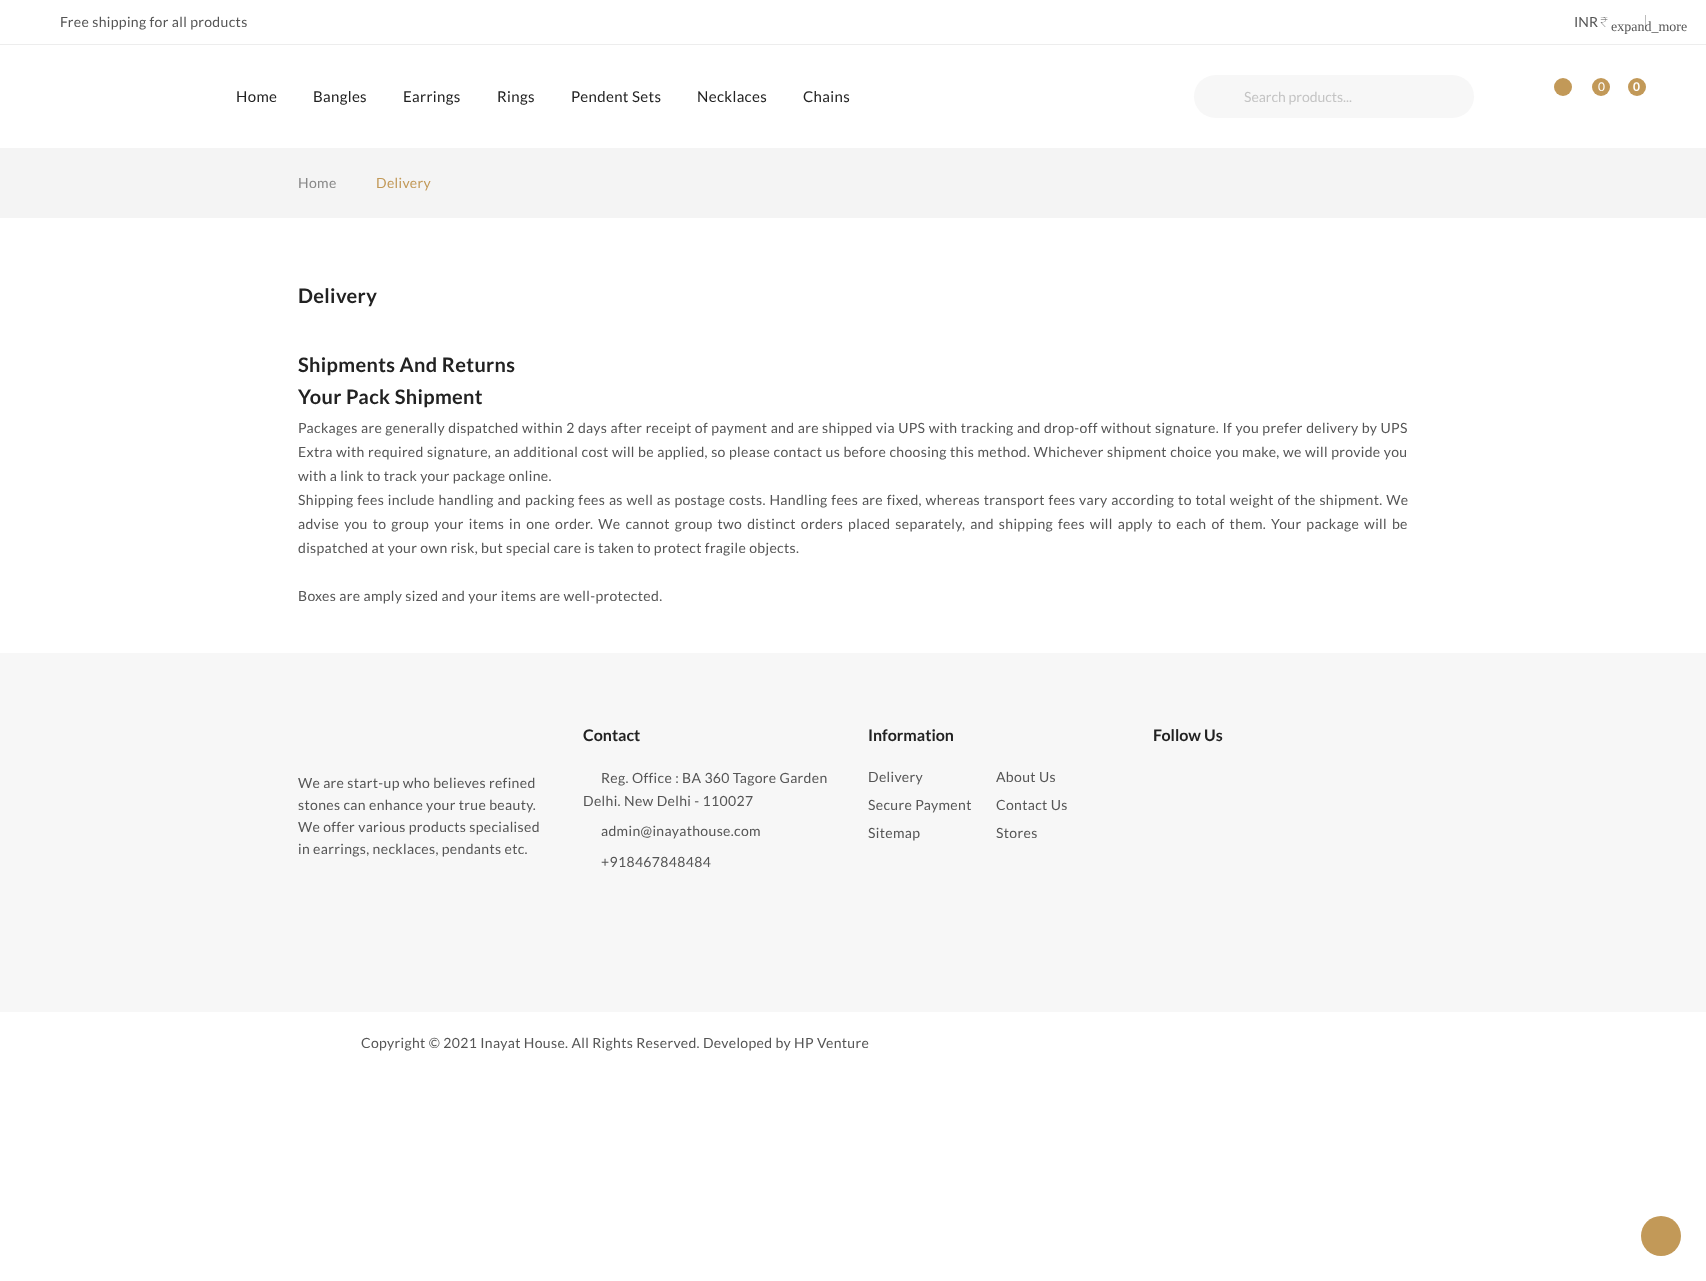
<!DOCTYPE html>
<meta charset="utf-8">
<style>body { margin: 0 } canvas { display: block }</style>
<canvas id="canvas" width="1706" height="1281"></canvas>
<script type="module">
  const canvas = document.getElementById("canvas");
  const ctx = canvas.getContext("2d");
  ctx.miterLimit = 4;
  ctx.fontKerning = "normal";

  ctx.fillStyle = "#ffffff";
  ctx.fillRect(0, 0, 1706, 1281);
  ctx.fillStyle = "#ededed";
  ctx.fillRect(0, 44, 1706, 1);
  ctx.letterSpacing = "0.35px";
  ctx.font = "14px Lato";
  ctx.fillStyle = "#555555";
  ctx.fillText("Free shipping for all products", 60, 27);
  ctx.fillStyle = "#bcbcbc";
  ctx.fillRect(1645, 15, 1, 14);
  ctx.letterSpacing = "0px";
  ctx.fillStyle = "#555555";
  ctx.fillText("INR", 1574, 27);
  ctx.font = "100 14px Noto Sans";
  ctx.fillText("₹", 1600, 27);
  ctx.font = "14px Liberation Serif";
  ctx.fillText("expand_more", 1611, 31);
  ctx.fillStyle = "#c29958";
  ctx.beginPath();
  ctx.arc(1563, 87, 9, 0, Math.PI * 2);
  ctx.fill();
  ctx.beginPath();
  ctx.arc(1601, 87, 9, 0, Math.PI * 2);
  ctx.fill();
  ctx.letterSpacing = "0.35px";
  ctx.font = "12px Lato";
  ctx.fillStyle = "#ffffff";
  ctx.fillText("0", 1598, 91);
  ctx.fillStyle = "#c29958";
  ctx.beginPath();
  ctx.arc(1637, 87, 9, 0, Math.PI * 2);
  ctx.fill();
  ctx.font = "bold 12px Lato";
  ctx.fillStyle = "#ffffff";
  ctx.fillText("0", 1633, 91);
  ctx.font = "15px Lato";
  ctx.fillStyle = "#222222";
  ctx.fillText("Home", 236, 102);
  ctx.fillText("Bangles", 313, 102);
  ctx.fillText("Earrings", 403, 102);
  ctx.fillText("Rings", 497, 102);
  ctx.fillText("Pendent Sets", 571, 102);
  ctx.fillText("Necklaces", 697, 102);
  ctx.fillText("Chains", 803, 102);
  ctx.fillStyle = "#f7f7f7";
  ctx.beginPath();
  ctx.roundRect(1194, 75, 280, 43, 21.5);
  ctx.fill();
  ctx.letterSpacing = "0px";
  ctx.font = "14px Lato";
  ctx.fillStyle = "#c4c4c4";
  ctx.fillText("Search products...", 1244, 102);
  ctx.fillStyle = "#f4f4f4";
  ctx.fillRect(0, 148, 1706, 70);
  ctx.letterSpacing = "0.35px";
  ctx.fillStyle = "#888888";
  ctx.fillText("Home", 298, 188);
  ctx.fillStyle = "#c29958";
  ctx.fillText("Delivery", 376, 188);
  ctx.font = "bold 20px Lato";
  ctx.fillStyle = "#222222";
  ctx.fillText("Delivery", 298, 303);
  ctx.fillText("Shipments And Returns", 298, 372);
  ctx.fillText("Your Pack Shipment", 298, 404);
  ctx.wordSpacing = "0.25px";
  ctx.font = "14px Lato";
  ctx.fillStyle = "#555555";
  ctx.fillText("Packages are generally dispatched within 2 days after receipt of payment and are shipped via UPS with tracking and drop-off without signature. If you prefer delivery by UPS", 298, 433);
  ctx.fillText("Extra with required signature, an additional cost will be applied, so please contact us before choosing this method. Whichever shipment choice you make, we will provide you", 298, 457);
  ctx.wordSpacing = "0px";
  ctx.fillText("with a link to track your package online.", 298, 481);
  ctx.wordSpacing = "0.65px";
  ctx.fillText("Shipping fees include handling and packing fees as well as postage costs. Handling fees are fixed, whereas transport fees vary according to total weight of the shipment. We", 298, 505);
  ctx.wordSpacing = "1.9px";
  ctx.fillText("advise you to group your items in one order. We cannot group two distinct orders placed separately, and shipping fees will apply to each of them. Your package will be", 298, 529);
  ctx.wordSpacing = "0px";
  ctx.fillText("dispatched at your own risk, but special care is taken to protect fragile objects.", 298, 553);
  ctx.fillText("Boxes are amply sized and your items are well-protected.", 298, 601);
  ctx.fillStyle = "#f7f7f7";
  ctx.fillRect(0, 653, 1706, 359);
  ctx.letterSpacing = "0px";
  ctx.font = "bold 16px Lato";
  ctx.fillStyle = "#222222";
  ctx.fillText("Contact", 583, 741);
  ctx.letterSpacing = "0.35px";
  ctx.font = "14px Lato";
  ctx.fillStyle = "#555555";
  ctx.fillText("Reg. Office : BA 360 Tagore Garden", 601, 783);
  ctx.fillText("Delhi. New Delhi - 110027", 583, 806);
  ctx.fillText("admin@inayathouse.com", 601, 836);
  ctx.fillText("+918467848484", 601, 867);
  ctx.letterSpacing = "0px";
  ctx.font = "bold 16px Lato";
  ctx.fillStyle = "#222222";
  ctx.fillText("Information", 868, 741);
  ctx.letterSpacing = "0.35px";
  ctx.font = "14px Lato";
  ctx.fillStyle = "#555555";
  ctx.fillText("Delivery", 868, 782);
  ctx.fillText("About Us", 996, 782);
  ctx.fillText("Secure Payment", 868, 810);
  ctx.fillText("Contact Us", 996, 810);
  ctx.fillText("Sitemap", 868, 838);
  ctx.fillText("Stores", 996, 838);
  ctx.letterSpacing = "0px";
  ctx.font = "bold 16px Lato";
  ctx.fillStyle = "#222222";
  ctx.fillText("Follow Us", 1153, 741);
  ctx.letterSpacing = "0.35px";
  ctx.font = "14px Lato";
  ctx.fillStyle = "#555555";
  ctx.fillText("We are start-up who believes refined", 298, 788);
  ctx.fillText("stones can enhance your true beauty.", 298, 810);
  ctx.fillText("We offer various products specialised", 298, 832);
  ctx.fillText("in earrings, necklaces, pendants etc.", 298, 854);
  ctx.fillText("Copyright © 2021 Inayat House. All Rights Reserved. Developed by HP Venture", 361, 1048);
  ctx.fillStyle = "#c29958";
  ctx.beginPath();
  ctx.arc(1661, 1236, 20, 0, Math.PI * 2);
  ctx.fill();
</script>
